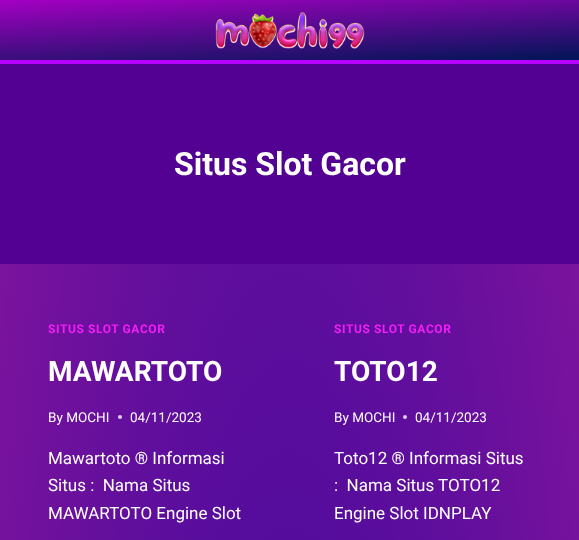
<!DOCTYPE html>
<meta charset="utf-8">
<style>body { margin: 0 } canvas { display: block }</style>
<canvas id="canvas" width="579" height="540"></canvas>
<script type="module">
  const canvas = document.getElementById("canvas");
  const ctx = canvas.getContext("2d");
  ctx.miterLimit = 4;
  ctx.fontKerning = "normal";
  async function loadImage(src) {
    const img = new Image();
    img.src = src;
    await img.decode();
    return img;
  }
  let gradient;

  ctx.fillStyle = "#ffffff";
  ctx.fillRect(0, 0, 579, 540);
  gradient = ctx.createRadialGradient(290, 289.29, 0, 290, 289.29, 409);
  gradient.addColorStop(0, "#25039a");
  gradient.addColorStop(1, "#80149e");
  ctx.fillStyle = gradient;
  ctx.beginPath();
  ctx.rect(0, 264, 579, 276);
  ctx.save();
  ctx.clip();
  ctx.scale(1, 3027 / 409);
  ctx.fillRect(0, 0, 579, 73);
  ctx.restore();
  gradient = ctx.createLinearGradient(287, -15, 292, 75);
  gradient.addColorStop(0, "#a200c1");
  gradient.addColorStop(1, "#021557");
  ctx.fillStyle = gradient;
  ctx.fillRect(0, 0, 579, 60);
  ctx.fillStyle = "#b700ff";
  ctx.fillRect(0, 60, 579, 4);
  ctx.drawImage(await loadImage("img1.png"), 215, 12, 150, 37);
  ctx.fillStyle = "#520192";
  ctx.fillRect(0, 64, 579, 200);
  ctx.font = "bold 32px Roboto";
  ctx.fillStyle = "#ffffff";
  ctx.fillText("Situs Slot Gacor", 174, 175);
  ctx.letterSpacing = "0.6px";
  ctx.font = "bold 12px Roboto";
  ctx.fillStyle = "#f21ef6";
  ctx.fillText("SITUS SLOT GACOR", 48, 333);
  ctx.letterSpacing = "0px";
  ctx.font = "bold 28px Roboto";
  ctx.fillStyle = "#ffffff";
  ctx.fillText("MAWARTOTO", 48, 381);
  ctx.font = "13.5px Roboto";
  ctx.fillText("By MOCHI", 48, 422);
  ctx.fillStyle = "#e0cfeb";
  ctx.beginPath();
  ctx.arc(120, 417, 2, 0, Math.PI * 2);
  ctx.fill();
  ctx.fillStyle = "#ffffff";
  ctx.fillText("04/11/2023", 130, 422);
  ctx.font = "17px Roboto";
  ctx.fillText("Mawartoto ® Informasi", 48, 464);
  ctx.fillText("Situs :  Nama Situs", 48, 491);
  ctx.fillText("MAWARTOTO Engine Slot", 48, 519);
  ctx.letterSpacing = "0.6px";
  ctx.font = "bold 12px Roboto";
  ctx.fillStyle = "#f21ef6";
  ctx.fillText("SITUS SLOT GACOR", 334, 333);
  ctx.letterSpacing = "0px";
  ctx.font = "bold 28px Roboto";
  ctx.fillStyle = "#ffffff";
  ctx.fillText("TOTO12", 334, 381);
  ctx.font = "13.5px Roboto";
  ctx.fillText("By MOCHI", 334, 422);
  ctx.fillStyle = "#dfcfeb";
  ctx.beginPath();
  ctx.arc(405, 417, 2, 0, Math.PI * 2);
  ctx.fill();
  ctx.fillStyle = "#ffffff";
  ctx.fillText("04/11/2023", 415, 422);
  ctx.font = "17px Roboto";
  ctx.fillText("Toto12 ® Informasi Situs", 334, 464);
  ctx.fillText(":  Nama Situs TOTO12", 334, 491);
  ctx.fillText("Engine Slot IDNPLAY", 334, 519);
</script>
